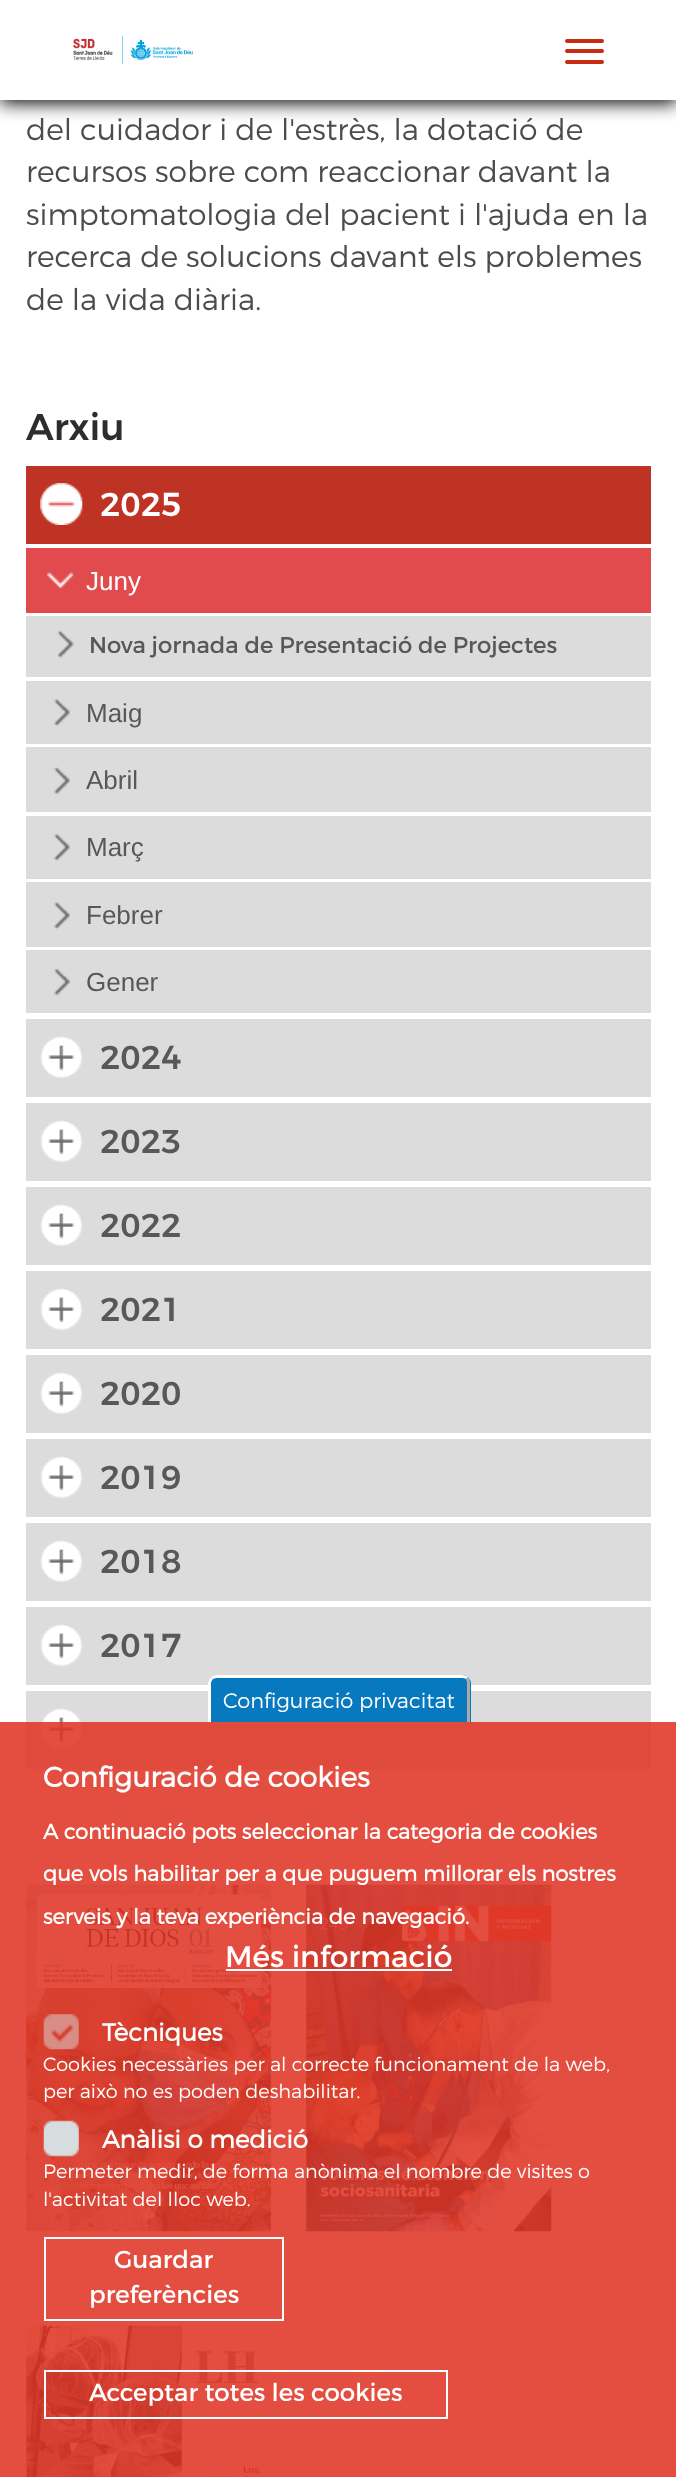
<!DOCTYPE html>
<meta charset="utf-8">
<style>body { margin: 0 } canvas { display: block }</style>
<canvas id="canvas" width="676" height="2477"></canvas>
<script type="module">
  const canvas = document.getElementById("canvas");
  const ctx = canvas.getContext("2d");
  ctx.miterLimit = 4;
  ctx.fontKerning = "normal";
  async function loadImage(src) {
    const img = new Image();
    img.src = src;
    await img.decode();
    return img;
  }

  ctx.fillStyle = "#ffffff";
  ctx.fillRect(0, 0, 676, 2477);
  ctx.fillStyle = "#020202";
  ctx.filter = "blur(9px)";
  ctx.beginPath();
  ctx.rect(0, 4, 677, 99);
  ctx.fill();
  ctx.filter = "none";
  ctx.fillStyle = "#ffffff";
  ctx.fillRect(0, 0, 676, 100);
  ctx.drawImage(await loadImage("img1.png"), 73, 35, 120, 30);
  ctx.fillStyle = "#c62d10";
  ctx.beginPath();
  ctx.roundRect(565, 39, 39, 4, 2);
  ctx.fill();
  ctx.beginPath();
  ctx.roundRect(565, 49, 39, 4, 2);
  ctx.fill();
  ctx.beginPath();
  ctx.roundRect(565, 60, 39, 4, 2);
  ctx.fill();
  ctx.font = "300 29.75px Montserrat";
  ctx.fillStyle = "#4c4c4b";
  ctx.fillText("del cuidador i de l'estrès, la dotació de", 26, 140);
  ctx.fillText("recursos sobre com reaccionar davant la", 26, 182);
  ctx.fillText("simptomatologia del pacient i l'ajuda en la", 26, 225);
  ctx.fillText("recerca de solucions davant els problemes", 26, 267);
  ctx.fillText("de la vida diària.", 26, 310);
  ctx.font = "500 37px Montserrat";
  ctx.fillStyle = "#2d2d2d";
  ctx.fillText("Arxiu", 26, 440);
  ctx.fillStyle = "#bf3325";
  ctx.fillRect(26, 466, 625, 78);
  ctx.drawImage(await loadImage("img2.png"), 40, 483, 43, 42);
  ctx.font = "500 33px Montserrat";
  ctx.fillStyle = "#ffffff";
  ctx.fillText("2025", 100, 516);
  ctx.fillStyle = "#e24b4d";
  ctx.fillRect(26, 548, 625, 65);
  ctx.drawImage(await loadImage("img3.png"), 47, 572, 27, 16);
  ctx.font = "26px Liberation Sans";
  ctx.fillStyle = "#ffffff";
  ctx.fillText("Juny", 86, 590);
  ctx.fillStyle = "#dddcdc";
  ctx.fillRect(26, 616, 625, 61);
  ctx.drawImage(await loadImage("img4.png"), 57, 630, 17, 28);
  ctx.font = "22.75px Montserrat";
  ctx.fillStyle = "#595858";
  ctx.fillText("Nova jornada de Presentació de Projectes", 89, 653);
  ctx.fillStyle = "#dddcdc";
  ctx.fillRect(26, 681, 625, 63);
  ctx.drawImage(await loadImage("img5.png"), 54, 698, 16, 29);
  ctx.font = "26px Liberation Sans";
  ctx.fillStyle = "#595858";
  ctx.fillText("Maig", 86, 722);
  ctx.fillStyle = "#dddcdc";
  ctx.fillRect(26, 747, 625, 65);
  ctx.drawImage(await loadImage("img6.png"), 54, 767, 16, 28);
  ctx.fillStyle = "#595858";
  ctx.fillText("Abril", 86, 789);
  ctx.fillStyle = "#dddcdc";
  ctx.fillRect(26, 816, 625, 63);
  ctx.drawImage(await loadImage("img7.png"), 54, 833, 16, 28);
  ctx.fillStyle = "#595858";
  ctx.fillText("Març", 86, 856);
  ctx.fillStyle = "#dddcdc";
  ctx.fillRect(26, 882, 625, 65);
  ctx.drawImage(await loadImage("img5.png"), 54, 901, 16, 29);
  ctx.fillStyle = "#595858";
  ctx.fillText("Febrer", 86, 924);
  ctx.fillStyle = "#dddcdc";
  ctx.fillRect(26, 950, 625, 63);
  ctx.drawImage(await loadImage("img8.png"), 54, 968, 16, 28);
  ctx.fillStyle = "#595858";
  ctx.fillText("Gener", 86, 991);
  ctx.fillStyle = "#dddcdc";
  ctx.fillRect(26, 1019, 625, 78);
  ctx.drawImage(await loadImage("img9.png"), 40, 1036, 43, 42);
  ctx.font = "500 33px Montserrat";
  ctx.fillStyle = "#595858";
  ctx.fillText("2024", 100, 1069);
  ctx.fillStyle = "#dddcdc";
  ctx.fillRect(26, 1103, 625, 78);
  ctx.drawImage(await loadImage("img9.png"), 40, 1120, 43, 42);
  ctx.fillStyle = "#595858";
  ctx.fillText("2023", 100, 1153);
  ctx.fillStyle = "#dddcdc";
  ctx.fillRect(26, 1187, 625, 78);
  ctx.drawImage(await loadImage("img9.png"), 40, 1204, 43, 42);
  ctx.fillStyle = "#595858";
  ctx.fillText("2022", 100, 1237);
  ctx.fillStyle = "#dddcdc";
  ctx.fillRect(26, 1271, 625, 78);
  ctx.drawImage(await loadImage("img9.png"), 40, 1288, 43, 42);
  ctx.fillStyle = "#595858";
  ctx.fillText("2021", 100, 1321);
  ctx.fillStyle = "#dddcdc";
  ctx.fillRect(26, 1355, 625, 78);
  ctx.drawImage(await loadImage("img9.png"), 40, 1372, 43, 42);
  ctx.fillStyle = "#595858";
  ctx.fillText("2020", 100, 1405);
  ctx.fillStyle = "#dddcdc";
  ctx.fillRect(26, 1439, 625, 78);
  ctx.drawImage(await loadImage("img9.png"), 40, 1456, 43, 42);
  ctx.fillStyle = "#595858";
  ctx.fillText("2019", 100, 1489);
  ctx.fillStyle = "#dddcdc";
  ctx.fillRect(26, 1523, 625, 78);
  ctx.drawImage(await loadImage("img9.png"), 40, 1540, 43, 42);
  ctx.fillStyle = "#595858";
  ctx.fillText("2018", 100, 1573);
  ctx.fillStyle = "#dddcdc";
  ctx.fillRect(26, 1607, 625, 78);
  ctx.drawImage(await loadImage("img9.png"), 40, 1624, 43, 42);
  ctx.fillStyle = "#595858";
  ctx.fillText("2017", 100, 1657);
  ctx.fillStyle = "#dddcdc";
  ctx.fillRect(26, 1691, 625, 78);
  ctx.drawImage(await loadImage("img9.png"), 40, 1708, 43, 42);
  ctx.drawImage(await loadImage("img10.png"), 26, 1884, 246, 348);
  ctx.drawImage(await loadImage("img11.png"), 306, 1884, 246, 348);
  ctx.drawImage(await loadImage("img12.png"), 26, 2325, 233, 152);
  ctx.fillStyle = "rgba(223, 56, 40, 0.89)";
  ctx.fillRect(0, 1722, 676, 755);
  ctx.fillStyle = "#0779bf";
  ctx.beginPath();
  ctx.roundRect(208, 1675, 263, 47, [9, 9, 0, 0]);
  ctx.fill();
  ctx.fillStyle = "#ffffff";
  ctx.beginPath();
  ctx.moveTo(217, 1675);
  ctx.lineTo(462, 1675);
  ctx.bezierCurveTo(464, 1675, 466, 1676, 468, 1677);
  ctx.lineTo(466, 1679);
  ctx.bezierCurveTo(465, 1678, 463, 1678, 462, 1678);
  ctx.lineTo(216, 1678);
  ctx.lineTo(213, 1679);
  ctx.lineTo(211, 1677);
  ctx.bezierCurveTo(212, 1676, 214, 1675, 217, 1675);
  ctx.closePath();
  ctx.fill();
  ctx.fillStyle = "#aaaaaa";
  ctx.beginPath();
  ctx.moveTo(467, 1722);
  ctx.lineTo(467, 1683);
  ctx.bezierCurveTo(467, 1681, 466, 1680, 466, 1679);
  ctx.lineTo(468, 1677);
  ctx.bezierCurveTo(469, 1679, 470, 1681, 470, 1683);
  ctx.lineTo(470, 1722);
  ctx.closePath();
  ctx.fill();
  ctx.fillStyle = "#ffffff";
  ctx.beginPath();
  ctx.moveTo(211, 1722);
  ctx.lineTo(208, 1722);
  ctx.lineTo(208, 1683);
  ctx.bezierCurveTo(208, 1681, 209, 1679, 211, 1677);
  ctx.lineTo(213, 1679);
  ctx.bezierCurveTo(212, 1680, 211, 1682, 211, 1683);
  ctx.closePath();
  ctx.fill();
  ctx.font = "300 21px Montserrat";
  ctx.fillText("Configuració privacitat", 223, 1708);
  ctx.font = "bold 28px Montserrat";
  ctx.fillText("Configuració de cookies", 43, 1787);
  ctx.font = "bold 21px Montserrat";
  ctx.fillText("A continuació pots seleccionar la categoria de cookies", 43, 1839);
  ctx.fillText("que vols habilitar per a que puguem millorar els nostres", 43, 1881);
  ctx.fillText("serveis y la teva experiència de navegació.", 43, 1924);
  ctx.font = "29.75px Montserrat";
  ctx.fillText("Més informació", 225, 1967);
  ctx.fillRect(226, 1969, 226, 2);
  ctx.drawImage(await loadImage("img13.png"), 43, 2014, 36, 36);
  ctx.font = "bold 24.5px Montserrat";
  ctx.fillText("Tècniques", 102, 2041);
  ctx.font = "300 19.25px Montserrat";
  ctx.fillText("Cookies necessàries per al correcte funcionament de la web,", 43, 2071);
  ctx.fillText("per això no es poden deshabilitar.", 43, 2098);
  ctx.drawImage(await loadImage("img14.png"), 43, 2120, 36, 37);
  ctx.font = "bold 24.5px Montserrat";
  ctx.fillText("Anàlisi o medició", 102, 2148);
  ctx.font = "300 19.25px Montserrat";
  ctx.fillText("Permeter medir, de forma anònima el nombre de visites o", 43, 2178);
  ctx.fillText("l'activitat del lloc web.", 43, 2206);
  ctx.strokeStyle = "#ffffff";
  ctx.lineWidth = 2;
  ctx.strokeRect(45, 2238, 238, 82);
  ctx.font = "24.5px Montserrat";
  ctx.fillText("Guardar", 114, 2268);
  ctx.fillText("preferències", 89, 2303);
  ctx.strokeRect(45, 2371, 402, 47);
  ctx.fillText("Acceptar totes les cookies", 89, 2401);
</script>
